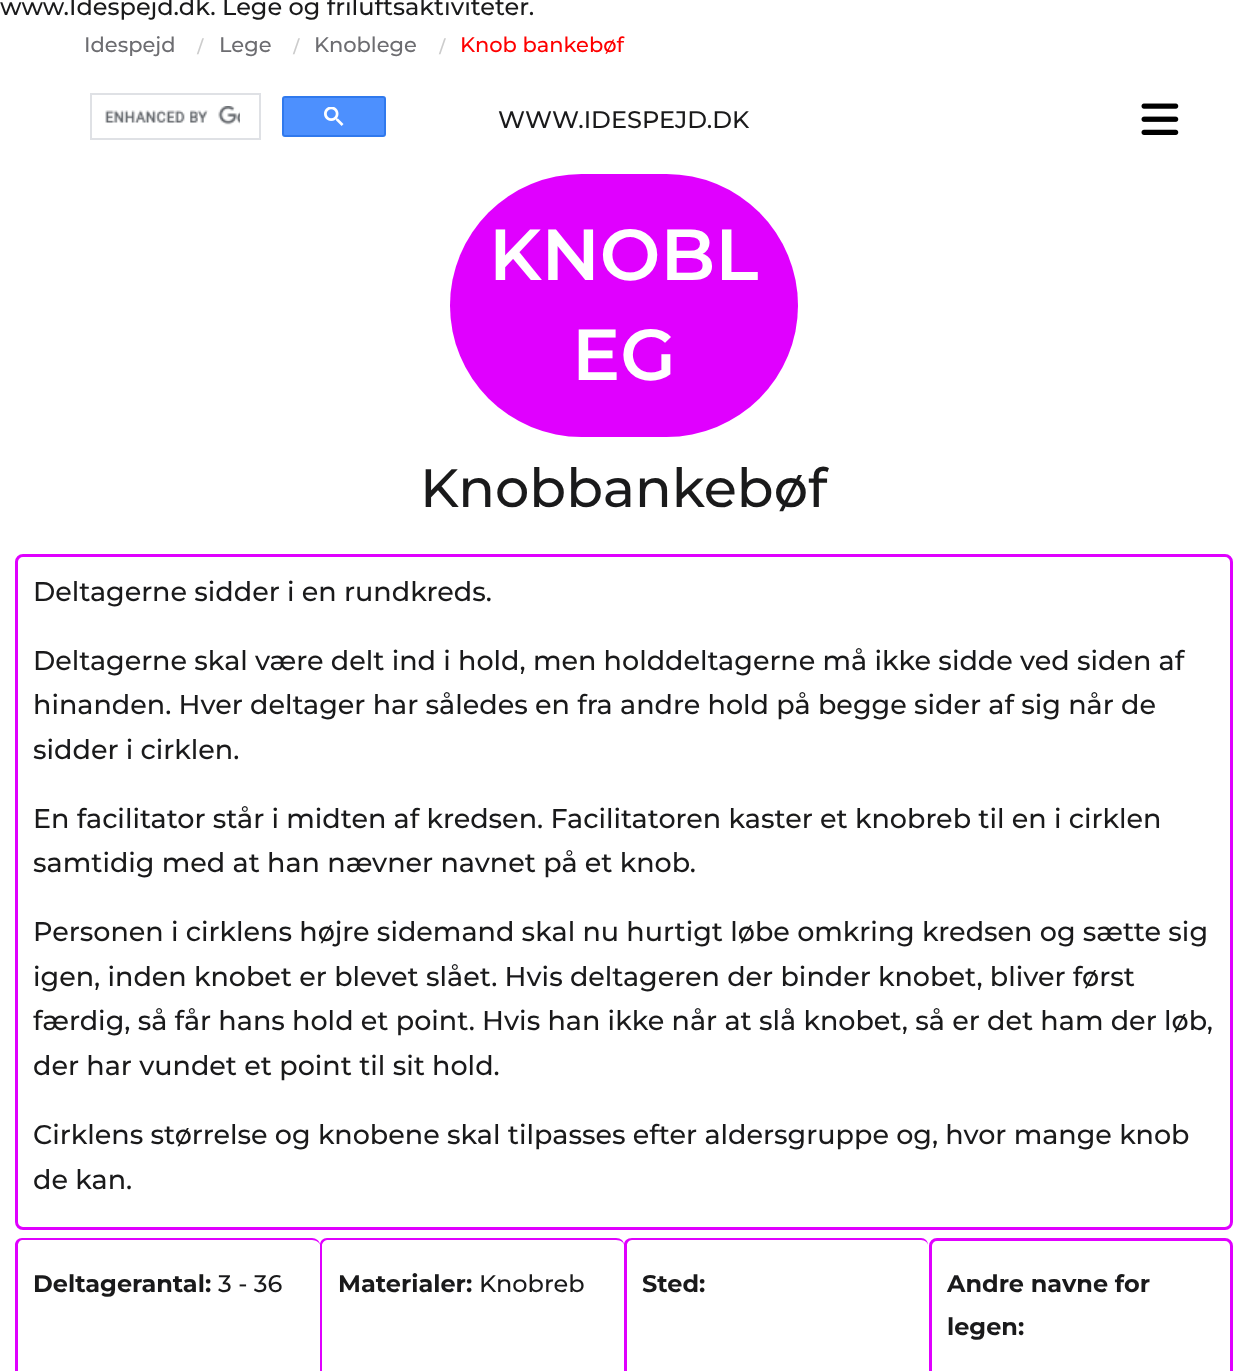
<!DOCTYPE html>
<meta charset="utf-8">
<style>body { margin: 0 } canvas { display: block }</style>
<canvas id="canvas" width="1247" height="1371"></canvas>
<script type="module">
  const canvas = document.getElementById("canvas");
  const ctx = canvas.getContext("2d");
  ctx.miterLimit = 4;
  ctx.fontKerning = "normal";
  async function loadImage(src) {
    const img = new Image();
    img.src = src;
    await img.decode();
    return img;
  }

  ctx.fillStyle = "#ffffff";
  ctx.fillRect(0, 0, 1247, 1371);
  ctx.font = "500 24px Montserrat";
  ctx.fillStyle = "#1a1a1b";
  ctx.fillText("www.Idespejd.dk. Lege og friluftsaktiviteter.", 0, 15);
  ctx.font = "500 21px Montserrat";
  ctx.fillStyle = "#6d6d71";
  ctx.fillText("Idespejd", 84, 52);
  ctx.font = "bold 24px Liberation Serif";
  ctx.fillStyle = "#cccccc";
  ctx.fillText("/", 197, 54);
  ctx.font = "500 21px Montserrat";
  ctx.fillStyle = "#6d6d71";
  ctx.fillText("Lege", 219, 52);
  ctx.font = "bold 24px Liberation Serif";
  ctx.fillStyle = "#cccccc";
  ctx.fillText("/", 293, 54);
  ctx.font = "500 21px Montserrat";
  ctx.fillStyle = "#6d6d71";
  ctx.fillText("Knoblege", 314, 52);
  ctx.font = "bold 24px Liberation Serif";
  ctx.fillStyle = "#cccccc";
  ctx.fillText("/", 439, 54);
  ctx.font = "500 21px Montserrat";
  ctx.fillStyle = "#fe0000";
  ctx.fillText("Knob bankebøf", 460, 52);
  ctx.strokeStyle = "#dfe1e5";
  ctx.lineWidth = 2;
  ctx.strokeRect(91, 94, 169, 45);
  ctx.drawImage(await loadImage("img1.png"), 105, 106, 135, 19);
  ctx.fillStyle = "#4d90fe";
  ctx.beginPath();
  ctx.roundRect(283, 97, 102, 39, 2);
  ctx.fill();
  ctx.strokeStyle = "#3079ed";
  ctx.stroke();
  ctx.drawImage(await loadImage("img2.png"), 324, 107, 20, 19);
  ctx.font = "500 24px Montserrat";
  ctx.fillStyle = "#1a1a1b";
  ctx.fillText("WWW.IDESPEJD.DK", 498, 128);
  ctx.drawImage(await loadImage("img3.png"), 1141, 103, 38, 32);
  ctx.fillStyle = "#e000ff";
  ctx.beginPath();
  ctx.roundRect(450, 174, 348, 263, 131.5);
  ctx.fill();
  ctx.font = "600 72px Montserrat";
  ctx.fillStyle = "#ffffff";
  ctx.fillText("KNOBL", 489, 280);
  ctx.fillText("EG", 572, 380);
  ctx.font = "500 54px Montserrat";
  ctx.fillStyle = "#1a1a1b";
  ctx.fillText("Knobbankebøf", 420, 507);
  ctx.beginPath();
  ctx.roundRect(16.5, 555.5, 1215, 673, 6.5);
  ctx.strokeStyle = "#e000ff";
  ctx.lineWidth = 3;
  ctx.stroke();
  ctx.font = "500 27px Montserrat";
  ctx.fillText("Deltagerne sidder i en rundkreds.", 33, 601);
  ctx.fillText("Deltagerne skal være delt ind i hold, men holddeltagerne må ikke sidde ved siden af", 33, 670);
  ctx.fillText("hinanden. Hver deltager har således en fra andre hold på begge sider af sig når de", 33, 714);
  ctx.fillText("sidder i cirklen.", 33, 759);
  ctx.fillText("En facilitator står i midten af kredsen. Facilitatoren kaster et knobreb til en i cirklen", 33, 828);
  ctx.fillText("samtidig med at han nævner navnet på et knob.", 33, 872);
  ctx.fillText("Personen i cirklens højre sidemand skal nu hurtigt løbe omkring kredsen og sætte sig", 33, 941);
  ctx.fillText("igen, inden knobet er blevet slået. Hvis deltageren der binder knobet, bliver først", 33, 986);
  ctx.fillText("færdig, så får hans hold et point. Hvis han ikke når at slå knobet, så er det ham der løb,", 33, 1030);
  ctx.fillText("der har vundet et point til sit hold.", 33, 1075);
  ctx.fillText("Cirklens størrelse og knobene skal tilpasses efter aldersgruppe og, hvor mange knob", 33, 1144);
  ctx.fillText("de kan.", 33, 1189);
  ctx.fillStyle = "#e000ff";
  ctx.beginPath();
  ctx.moveTo(22, 1238);
  ctx.lineTo(312, 1238);
  ctx.bezierCurveTo(316, 1238, 320, 1241, 320, 1245);
  ctx.lineTo(320, 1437);
  ctx.bezierCurveTo(320, 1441, 316, 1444, 312, 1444);
  ctx.lineTo(22, 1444);
  ctx.bezierCurveTo(18, 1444, 15, 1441, 15, 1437);
  ctx.lineTo(15, 1245);
  ctx.bezierCurveTo(15, 1241, 18, 1238, 22, 1238);
  ctx.closePath();
  ctx.moveTo(22, 1240);
  ctx.lineTo(312, 1240);
  ctx.bezierCurveTo(316, 1240, 320, 1243, 320, 1245);
  ctx.lineTo(320, 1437);
  ctx.bezierCurveTo(320, 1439, 316, 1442, 312, 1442);
  ctx.lineTo(22, 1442);
  ctx.bezierCurveTo(20, 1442, 18, 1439, 18, 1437);
  ctx.lineTo(18, 1245);
  ctx.bezierCurveTo(18, 1243, 20, 1240, 22, 1240);
  ctx.closePath();
  ctx.fill("evenodd");
  ctx.font = "bold 24px Montserrat";
  ctx.fillStyle = "#1a1a1b";
  ctx.fillText("Deltagerantal:", 33, 1292);
  ctx.font = "500 24px Montserrat";
  ctx.fillText("3 - 36", 218, 1292);
  ctx.fillStyle = "#e000ff";
  ctx.beginPath();
  ctx.moveTo(327, 1238);
  ctx.lineTo(616, 1238);
  ctx.bezierCurveTo(621, 1238, 624, 1241, 624, 1245);
  ctx.lineTo(624, 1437);
  ctx.bezierCurveTo(624, 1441, 621, 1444, 616, 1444);
  ctx.lineTo(327, 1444);
  ctx.bezierCurveTo(323, 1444, 320, 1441, 320, 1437);
  ctx.lineTo(320, 1245);
  ctx.bezierCurveTo(320, 1241, 323, 1238, 327, 1238);
  ctx.closePath();
  ctx.moveTo(327, 1240);
  ctx.lineTo(616, 1240);
  ctx.bezierCurveTo(621, 1240, 624, 1243, 624, 1245);
  ctx.lineTo(624, 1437);
  ctx.bezierCurveTo(624, 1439, 621, 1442, 616, 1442);
  ctx.lineTo(327, 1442);
  ctx.bezierCurveTo(325, 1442, 322, 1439, 322, 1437);
  ctx.lineTo(322, 1245);
  ctx.bezierCurveTo(322, 1243, 325, 1240, 327, 1240);
  ctx.closePath();
  ctx.fill("evenodd");
  ctx.font = "bold 24px Montserrat";
  ctx.fillStyle = "#1a1a1b";
  ctx.fillText("Materialer:", 338, 1292);
  ctx.font = "500 24px Montserrat";
  ctx.fillText("Knobreb", 479, 1292);
  ctx.fillStyle = "#e000ff";
  ctx.beginPath();
  ctx.moveTo(632, 1238);
  ctx.lineTo(921, 1238);
  ctx.bezierCurveTo(925, 1238, 928, 1241, 928, 1245);
  ctx.lineTo(928, 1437);
  ctx.bezierCurveTo(928, 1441, 925, 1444, 921, 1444);
  ctx.lineTo(632, 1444);
  ctx.bezierCurveTo(627, 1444, 624, 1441, 624, 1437);
  ctx.lineTo(624, 1245);
  ctx.bezierCurveTo(624, 1241, 627, 1238, 632, 1238);
  ctx.closePath();
  ctx.moveTo(632, 1240);
  ctx.lineTo(921, 1240);
  ctx.bezierCurveTo(925, 1240, 928, 1243, 928, 1245);
  ctx.lineTo(928, 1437);
  ctx.bezierCurveTo(928, 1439, 925, 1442, 921, 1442);
  ctx.lineTo(632, 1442);
  ctx.bezierCurveTo(629, 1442, 627, 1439, 627, 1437);
  ctx.lineTo(627, 1245);
  ctx.bezierCurveTo(627, 1243, 629, 1240, 632, 1240);
  ctx.closePath();
  ctx.fill("evenodd");
  ctx.font = "bold 24px Montserrat";
  ctx.fillStyle = "#1a1a1b";
  ctx.fillText("Sted:", 642, 1292);
  ctx.beginPath();
  ctx.roundRect(930.5, 1239.5, 301, 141, 6.5);
  ctx.stroke();
  ctx.fillText("Andre navne for", 947, 1292);
  ctx.fillText("legen:", 947, 1335);
</script>
